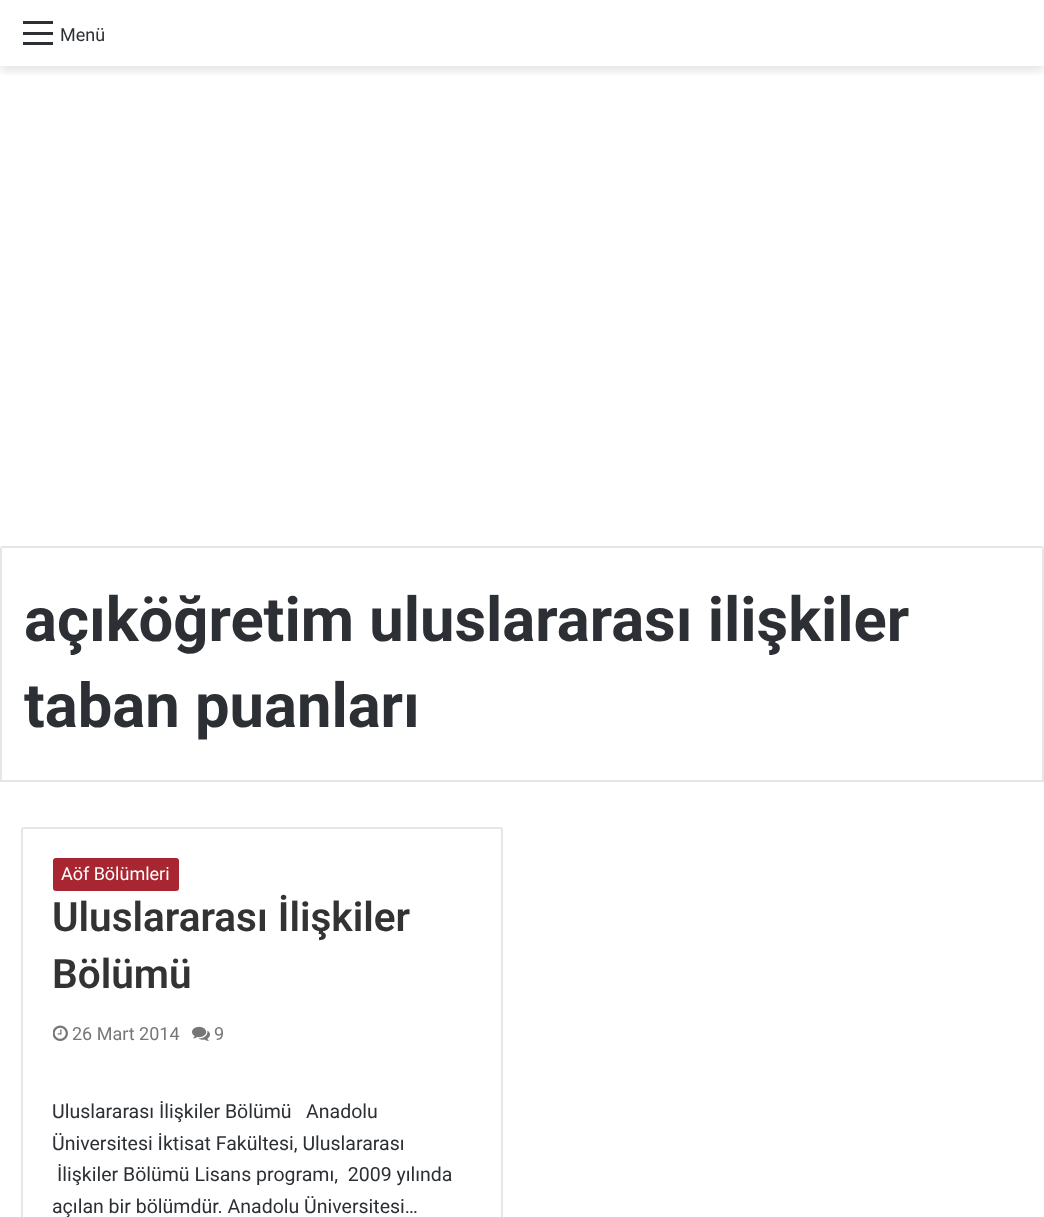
<!DOCTYPE html>
<meta charset="utf-8">
<style>body { margin: 0 } canvas { display: block }</style>
<canvas id="canvas" width="1044" height="1217"></canvas>
<script type="module">
  const canvas = document.getElementById("canvas");
  const ctx = canvas.getContext("2d");
  ctx.miterLimit = 4;
  ctx.fontKerning = "normal";
  async function loadImage(src) {
    const img = new Image();
    img.src = src;
    await img.decode();
    return img;
  }

  ctx.fillStyle = "#ffffff";
  ctx.fillRect(0, 0, 1044, 1217);
  ctx.save();
  ctx.beginPath();
  ctx.rect(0, 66, 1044, 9);
  ctx.clip();
  ctx.fillStyle = "rgba(0, 0, 0, 0.1)";
  ctx.filter = "blur(5px)";
  ctx.beginPath();
  ctx.rect(0, 5, 1044, 66);
  ctx.fill();
  ctx.filter = "none";
  ctx.restore();
  ctx.fillStyle = "#2c2f34";
  ctx.fillRect(23, 32, 30, 3);
  ctx.fillRect(23, 21, 30, 3);
  ctx.fillRect(23, 42, 30, 3);
  ctx.font = "18px Roboto";
  ctx.fillText("Menü", 60, 41);
  ctx.beginPath();
  ctx.roundRect(1, 547, 1042, 234, [2, 2, 0, 0]);
  ctx.strokeStyle = "#e6e6e6";
  ctx.lineWidth = 2;
  ctx.stroke();
  ctx.font = "bold 61.5px Roboto";
  ctx.fillText("açıköğretim uluslararası ilişkiler", 24, 641);
  ctx.fillText("taban puanları", 24, 727);
  ctx.beginPath();
  ctx.roundRect(22, 828, 480, 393, 2);
  ctx.stroke();
  ctx.fillStyle = "#a82632";
  ctx.beginPath();
  ctx.roundRect(53, 858, 126, 33, 3);
  ctx.fill();
  ctx.font = "18px Roboto";
  ctx.fillStyle = "#ffffff";
  ctx.fillText("Aöf Bölümleri", 61, 880);
  ctx.font = "600 40.5px Roboto";
  ctx.fillStyle = "#333333";
  ctx.fillText("Uluslararası İlişkiler", 52, 931);
  ctx.fillText("Bölümü", 52, 988);
  ctx.drawImage(await loadImage("img1.png"), 53, 1025, 15, 16);
  ctx.font = "18px Roboto";
  ctx.fillStyle = "#767676";
  ctx.fillText("26 Mart 2014", 72, 1040);
  ctx.drawImage(await loadImage("img2.png"), 192, 1026, 18, 15);
  ctx.fillText("9", 214, 1040);
  ctx.font = "19.5px Roboto";
  ctx.fillStyle = "#2c2f34";
  ctx.fillText("Uluslararası İlişkiler Bölümü   Anadolu", 52, 1118);
  ctx.fillText("Üniversitesi İktisat Fakültesi, Uluslararası", 52, 1150);
  ctx.fillText("İlişkiler Bölümü Lisans programı,  2009 yılında", 57, 1181);
  ctx.fillText("açılan bir bölümdür. Anadolu Üniversitesi…", 52, 1213);
</script>
